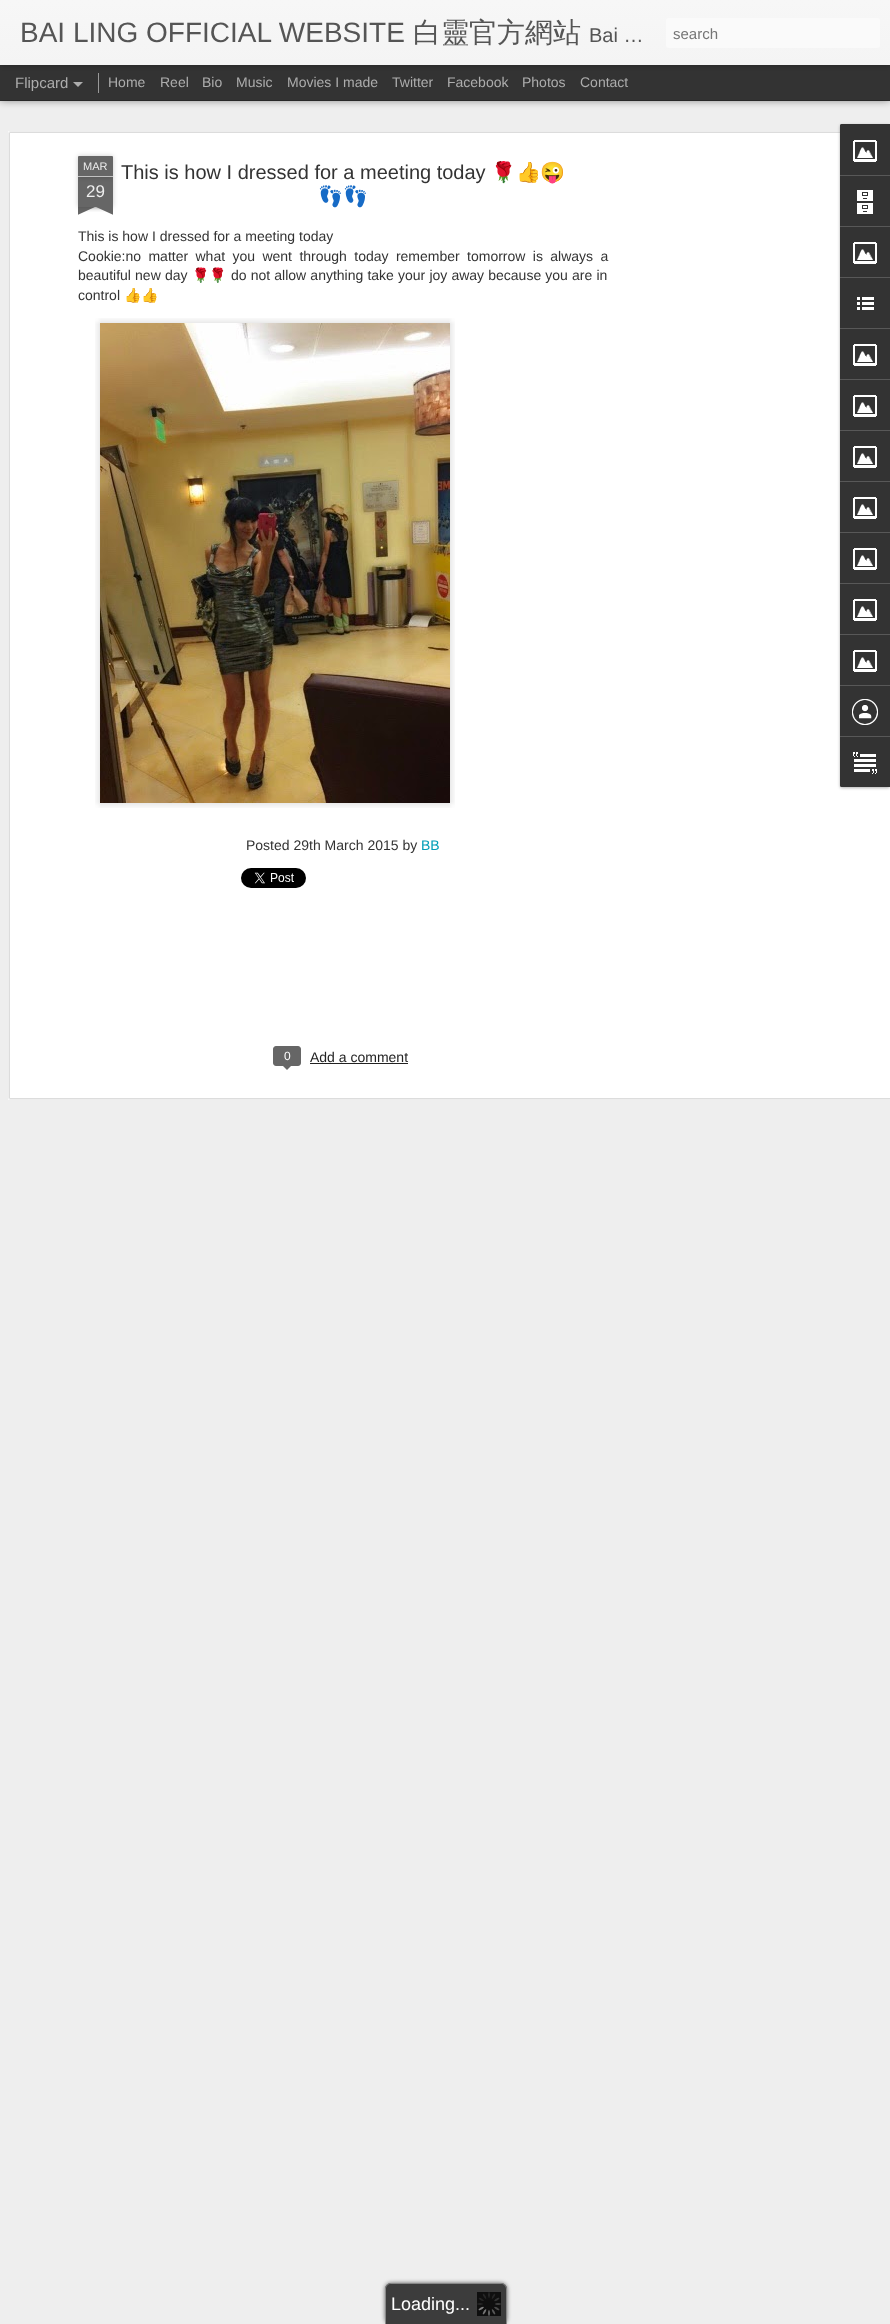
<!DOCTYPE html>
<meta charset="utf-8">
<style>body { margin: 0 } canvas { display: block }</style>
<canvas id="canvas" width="890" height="2324"></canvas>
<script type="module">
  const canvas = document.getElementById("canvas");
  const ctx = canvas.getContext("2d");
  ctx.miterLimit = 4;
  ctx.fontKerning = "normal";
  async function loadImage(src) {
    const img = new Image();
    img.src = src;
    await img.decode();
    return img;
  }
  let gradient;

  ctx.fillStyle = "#333333";
  ctx.fillRect(0, 0, 890, 2324);
  ctx.fillStyle = "#eeeeee";
  ctx.fillRect(0, 101, 890, 2223);
  ctx.fillStyle = "rgba(0, 0, 0, 0.5)";
  ctx.filter = "blur(4px)";
  ctx.beginPath();
  ctx.rect(0, 65, 890, 35);
  ctx.fill();
  ctx.filter = "none";
  ctx.fillStyle = "#333333";
  ctx.fillRect(0, 65, 890, 35);
  ctx.fillStyle = "#999999";
  ctx.fillRect(98, 73, 1, 20);
  ctx.fillStyle = "rgba(0, 0, 0, 0.3)";
  ctx.filter = "blur(2.5px)";
  ctx.beginPath();
  ctx.rect(0, 0, 890, 65);
  ctx.fill();
  ctx.filter = "none";
  gradient = ctx.createLinearGradient(0, 0, 0, 65);
  gradient.addColorStop(0, "#f7f7f7");
  gradient.addColorStop(1, "#f4f4f4");
  ctx.fillStyle = gradient;
  ctx.fillRect(0, 0, 890, 65);
  ctx.font = "28px Liberation Sans";
  ctx.fillStyle = "#555555";
  ctx.fillText("BAI LING OFFICIAL WEBSITE", 20, 42);
  ctx.font = "500 28px WenQuanYi Zen Hei";
  ctx.fillText("白靈官方網站", 413, 42);
  ctx.font = "20px Liberation Sans";
  ctx.fillText("Bai …", 589, 42);
  ctx.fillStyle = "#fafafa";
  ctx.beginPath();
  ctx.roundRect(666, 18, 214, 30, 3);
  ctx.fill();
  ctx.font = "15px Liberation Sans";
  ctx.fillStyle = "#757575";
  ctx.fillText("search", 673, 39);
  ctx.fillStyle = "#adadad";
  ctx.fillText("Flipcard", 15, 88);
  ctx.beginPath();
  ctx.moveTo(73, 82);
  ctx.lineTo(83, 82);
  ctx.lineTo(78, 87);
  ctx.closePath();
  ctx.fill();
  ctx.font = "14px Liberation Sans";
  ctx.fillText("Home", 108, 87);
  ctx.fillText("Reel", 160, 87);
  ctx.fillText("Bio", 202, 87);
  ctx.fillText("Music", 236, 87);
  ctx.fillText("Movies I made", 287, 87);
  ctx.fillText("Twitter", 392, 87);
  ctx.fillText("Facebook", 447, 87);
  ctx.fillText("Photos", 522, 87);
  ctx.fillText("Contact", 580, 87);
  ctx.fillStyle = "#ffffff";
  ctx.fillRect(8, 131, 882, 969);
  ctx.drawImage(await loadImage("img1.png"), 8, 131, 882, 969);
  ctx.fillStyle = "rgba(0, 0, 0, 0.2)";
  ctx.filter = "blur(2.5px)";
  ctx.beginPath();
  ctx.rect(78, 177, 35, 30);
  ctx.fill();
  ctx.filter = "none";
  ctx.fillStyle = "#666666";
  ctx.fillRect(78, 177, 35, 30);
  ctx.fillStyle = "rgba(0, 0, 0, 0.2)";
  ctx.filter = "blur(2.5px)";
  ctx.beginPath();
  ctx.roundRect(78, 156, 35, 21, 1);
  ctx.fill();
  ctx.filter = "none";
  ctx.fillStyle = "#666666";
  ctx.beginPath();
  ctx.roundRect(78, 156, 35, 21, [1, 1, 0, 0]);
  ctx.fill();
  ctx.fillStyle = "#c2c2c2";
  ctx.fillRect(78, 176, 35, 1);
  ctx.font = "11px Liberation Sans";
  ctx.fillStyle = "#eeeeee";
  ctx.fillText("MAR", 83, 170);
  ctx.font = "17px Liberation Sans";
  ctx.fillText("29", 86, 197);
  ctx.save();
  ctx.beginPath();
  ctx.rect(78, 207, 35, 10);
  ctx.clip();
  ctx.fillStyle = "rgba(0, 0, 0, 0.2)";
  ctx.filter = "blur(2.5px)";
  ctx.beginPath();
  ctx.rect(69, 197, 50, 10);
  ctx.fill();
  ctx.filter = "none";
  ctx.restore();
  ctx.save();
  ctx.beginPath();
  ctx.rect(78, 207, 35, 10);
  ctx.clip();
  ctx.fillStyle = "#666666";
  ctx.beginPath();
  ctx.moveTo(69, 208);
  ctx.lineTo(115, 187);
  ctx.lineTo(119, 196);
  ctx.lineTo(73, 217);
  ctx.closePath();
  ctx.fill();
  ctx.restore();
  ctx.save();
  ctx.beginPath();
  ctx.rect(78, 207, 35, 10);
  ctx.clip();
  ctx.fillStyle = "rgba(0, 0, 0, 0.2)";
  ctx.filter = "blur(2.5px)";
  ctx.beginPath();
  ctx.rect(72, 197, 50, 10);
  ctx.fill();
  ctx.filter = "none";
  ctx.restore();
  ctx.save();
  ctx.beginPath();
  ctx.rect(78, 207, 35, 10);
  ctx.clip();
  ctx.fillStyle = "#666666";
  ctx.beginPath();
  ctx.moveTo(76, 187);
  ctx.lineTo(122, 208);
  ctx.lineTo(118, 217);
  ctx.lineTo(72, 196);
  ctx.closePath();
  ctx.fill();
  ctx.restore();
  ctx.font = "20px Liberation Sans";
  ctx.fillStyle = "#333333";
  ctx.fillText("This is how I dressed for a meeting today", 121, 179);
  ctx.font = "20px Noto Color Emoji";
  ctx.fillText("🌹👍😜", 491, 179);
  ctx.fillText("👣👣", 318, 203);
  ctx.font = "14px Liberation Sans";
  ctx.fillText("This is how I dressed for a meeting today", 78, 241);
  ctx.wordSpacing = "3.5px";
  ctx.fillText("Cookie:no matter what you went through today remember tomorrow is always a", 78, 261);
  ctx.wordSpacing = "0.25px";
  ctx.fillText("beautiful new day", 78, 280);
  ctx.wordSpacing = "0px";
  ctx.font = "14px Noto Color Emoji";
  ctx.fillText("🌹🌹", 192, 280);
  ctx.wordSpacing = "0.25px";
  ctx.font = "14px Liberation Sans";
  ctx.fillText("do not allow anything take your joy away because you are in", 231, 280);
  ctx.wordSpacing = "0px";
  ctx.fillText("control", 78, 300);
  ctx.font = "14px Noto Color Emoji";
  ctx.fillText("👍👍", 124, 300);
  ctx.drawImage(await loadImage("img2.png"), 95, 318, 360, 490);
  ctx.font = "14px Liberation Sans";
  ctx.fillText("Posted 29th March 2015 by", 246, 850);
  ctx.fillStyle = "#009eb8";
  ctx.fillText("BB", 421, 850);
  ctx.drawImage(await loadImage("img3.png"), 241, 868, 65, 20);
  ctx.fillStyle = "#666666";
  ctx.beginPath();
  ctx.roundRect(273.5, 1046.5, 27, 19, 2.5);
  ctx.fill();
  ctx.strokeStyle = "#666666";
  ctx.stroke();
  ctx.font = "12px Liberation Sans";
  ctx.fillStyle = "#ffffff";
  ctx.fillText("0", 284, 1060);
  ctx.fillStyle = "#666666";
  ctx.beginPath();
  ctx.moveTo(282, 1065);
  ctx.lineTo(292, 1065);
  ctx.lineTo(287, 1070);
  ctx.closePath();
  ctx.fill();
  ctx.font = "14px Liberation Sans";
  ctx.fillStyle = "#222222";
  ctx.fillText("Add a comment", 310, 1062);
  ctx.fillRect(310, 1063, 98, 1);
  ctx.fillStyle = "rgba(0, 0, 0, 0.3)";
  ctx.filter = "blur(1.5px)";
  ctx.beginPath();
  ctx.roundRect(840, 125, 50, 663, 2);
  ctx.fill();
  ctx.filter = "none";
  ctx.fillStyle = "#333333";
  ctx.beginPath();
  ctx.roundRect(840, 124, 50, 663, [2, 0, 0, 2]);
  ctx.fill();
  ctx.beginPath();
  ctx.roundRect(840, 124, 50, 51, [2, 0, 0, 0]);
  ctx.fill();
  ctx.drawImage(await loadImage("img4.png"), 853, 140, 24, 22);
  ctx.fillStyle = "#585858";
  ctx.fillRect(840, 175, 50, 1);
  ctx.drawImage(await loadImage("img5.png"), 857, 190, 16, 24);
  ctx.fillRect(840, 226, 50, 1);
  ctx.drawImage(await loadImage("img4.png"), 853, 242, 24, 22);
  ctx.fillRect(840, 277, 50, 1);
  ctx.drawImage(await loadImage("img6.png"), 857, 297, 17, 13);
  ctx.fillRect(840, 328, 50, 1);
  ctx.drawImage(await loadImage("img4.png"), 853, 344, 24, 22);
  ctx.fillRect(840, 379, 50, 1);
  ctx.drawImage(await loadImage("img4.png"), 853, 395, 24, 22);
  ctx.fillRect(840, 430, 50, 1);
  ctx.drawImage(await loadImage("img4.png"), 853, 446, 24, 22);
  ctx.fillRect(840, 481, 50, 1);
  ctx.drawImage(await loadImage("img4.png"), 853, 497, 24, 22);
  ctx.fillRect(840, 532, 50, 1);
  ctx.drawImage(await loadImage("img4.png"), 853, 548, 24, 22);
  ctx.fillRect(840, 583, 50, 1);
  ctx.drawImage(await loadImage("img4.png"), 853, 599, 24, 22);
  ctx.fillRect(840, 634, 50, 1);
  ctx.drawImage(await loadImage("img4.png"), 853, 650, 24, 22);
  ctx.fillRect(840, 685, 50, 1);
  ctx.drawImage(await loadImage("img7.png"), 852, 699, 26, 26);
  ctx.fillStyle = "#333333";
  ctx.beginPath();
  ctx.roundRect(840, 736, 50, 51, [0, 0, 0, 2]);
  ctx.fill();
  ctx.fillStyle = "#585858";
  ctx.fillRect(840, 736, 50, 1);
  ctx.drawImage(await loadImage("img8.png"), 853, 752, 24, 22);
  ctx.fillStyle = "#626262";
  ctx.filter = "blur(2px)";
  ctx.beginPath();
  ctx.roundRect(385, 2283, 122, 41, 6);
  ctx.fill();
  ctx.filter = "none";
  ctx.fillStyle = "#3c3c3c";
  ctx.beginPath();
  ctx.roundRect(385, 2283, 122, 41, [6, 6, 0, 0]);
  ctx.fill();
  ctx.fillStyle = "#888888";
  ctx.beginPath();
  ctx.moveTo(391, 2283);
  ctx.lineTo(501, 2283);
  ctx.bezierCurveTo(504, 2283, 507, 2286, 507, 2289);
  ctx.lineTo(507, 2324);
  ctx.lineTo(385, 2324);
  ctx.lineTo(385, 2289);
  ctx.bezierCurveTo(385, 2286, 388, 2283, 391, 2283);
  ctx.closePath();
  ctx.moveTo(391, 2284);
  ctx.lineTo(501, 2284);
  ctx.bezierCurveTo(504, 2284, 506, 2286, 506, 2289);
  ctx.lineTo(506, 2324);
  ctx.lineTo(386, 2324);
  ctx.lineTo(386, 2289);
  ctx.bezierCurveTo(386, 2286, 388, 2284, 391, 2284);
  ctx.closePath();
  ctx.fill("evenodd");
  ctx.drawImage(await loadImage("img9.png"), 477, 2292, 24, 24);
  ctx.font = "18px Liberation Sans";
  ctx.fillStyle = "#ffffff";
  ctx.fillText("Loading...", 391, 2310);
</script>
